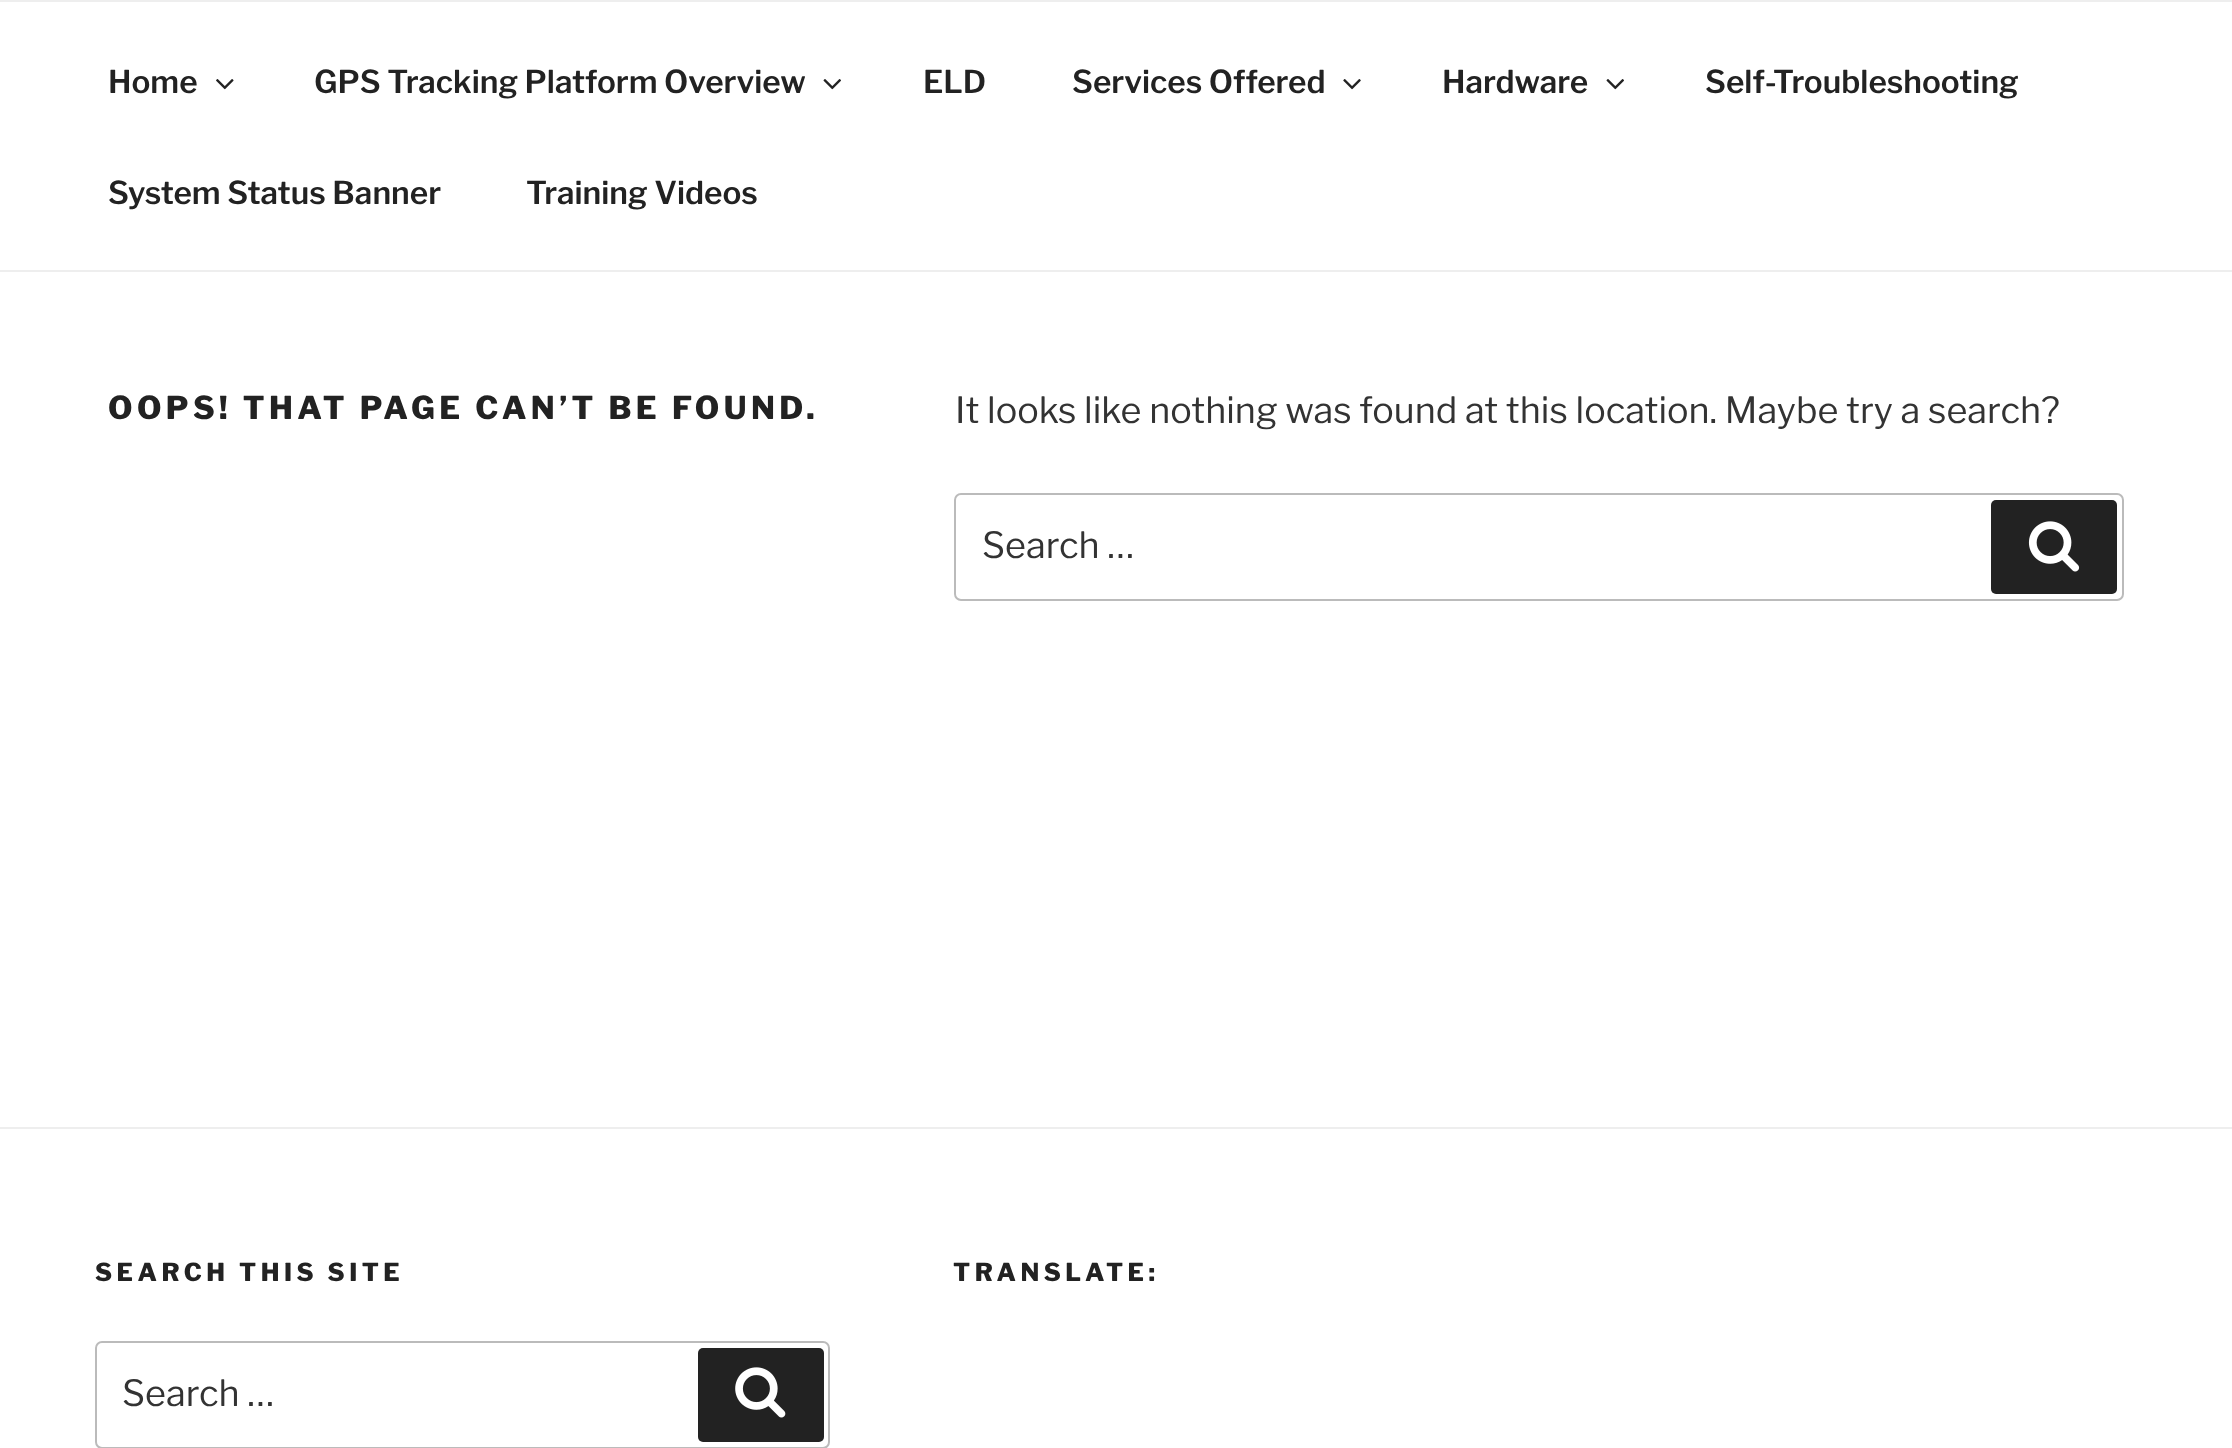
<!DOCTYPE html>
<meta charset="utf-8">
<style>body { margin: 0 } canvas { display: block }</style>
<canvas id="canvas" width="2232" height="1448"></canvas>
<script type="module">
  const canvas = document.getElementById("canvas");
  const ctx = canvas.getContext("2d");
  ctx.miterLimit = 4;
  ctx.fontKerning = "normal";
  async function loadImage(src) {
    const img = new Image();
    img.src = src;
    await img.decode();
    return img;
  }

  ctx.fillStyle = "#ffffff";
  ctx.fillRect(0, 0, 2232, 1448);
  ctx.fillStyle = "#eeeeee";
  ctx.fillRect(0, 0, 2232, 2);
  ctx.fillRect(0, 270, 2232, 2);
  ctx.font = "100 31.5px 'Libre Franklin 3'";
  ctx.fillStyle = "#222222";
  ctx.fillText("Home", 108, 93);
  ctx.drawImage(await loadImage("img1.png"), 216, 79, 18, 11);
  ctx.fillText("GPS Tracking Platform Overview", 314, 93);
  ctx.drawImage(await loadImage("img2.png"), 823, 79, 18, 11);
  ctx.fillText("ELD", 923, 93);
  ctx.fillText("Services Offered", 1072, 93);
  ctx.drawImage(await loadImage("img3.png"), 1343, 79, 18, 11);
  ctx.fillText("Hardware", 1442, 93);
  ctx.drawImage(await loadImage("img2.png"), 1606, 79, 18, 11);
  ctx.fillText("Self-Troubleshooting", 1705, 93);
  ctx.fillText("System Status Banner", 108, 204);
  ctx.fillText("Training Videos", 526, 204);
  ctx.letterSpacing = "4.4px";
  ctx.font = "100 31.5px Libre Franklin";
  ctx.fillText("OOPS! THAT PAGE CAN’T BE FOUND.", 108, 419);
  ctx.letterSpacing = "0px";
  ctx.font = "100 36px 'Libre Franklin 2'";
  ctx.fillStyle = "#333333";
  ctx.fillText("It looks like nothing was found at this location. Maybe try a search?", 955, 423);
  ctx.beginPath();
  ctx.roundRect(955, 494, 1168, 106, 6);
  ctx.strokeStyle = "#bbbbbb";
  ctx.lineWidth = 2;
  ctx.stroke();
  ctx.fillText("Search …", 982, 558);
  ctx.fillStyle = "#222222";
  ctx.beginPath();
  ctx.roundRect(1991, 500, 126, 94, 5);
  ctx.fill();
  ctx.drawImage(await loadImage("img4.png"), 2028, 521, 52, 51);
  ctx.fillStyle = "#eeeeee";
  ctx.fillRect(0, 1127, 2232, 2);
  ctx.letterSpacing = "4.5px";
  ctx.font = "100 24.75px Libre Franklin";
  ctx.fillStyle = "#222222";
  ctx.fillText("SEARCH THIS SITE", 95, 1281);
  ctx.beginPath();
  ctx.roundRect(96, 1342, 733, 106, 6);
  ctx.stroke();
  ctx.letterSpacing = "0px";
  ctx.font = "100 36px 'Libre Franklin 2'";
  ctx.fillStyle = "#333333";
  ctx.fillText("Search …", 122, 1406);
  ctx.fillStyle = "#222222";
  ctx.beginPath();
  ctx.roundRect(698, 1348, 126, 94, 5);
  ctx.fill();
  ctx.drawImage(await loadImage("img5.png"), 735, 1367, 51, 51);
  ctx.letterSpacing = "4.5px";
  ctx.font = "100 24.75px Libre Franklin";
  ctx.fillText("TRANSLATE:", 953, 1281);
</script>
